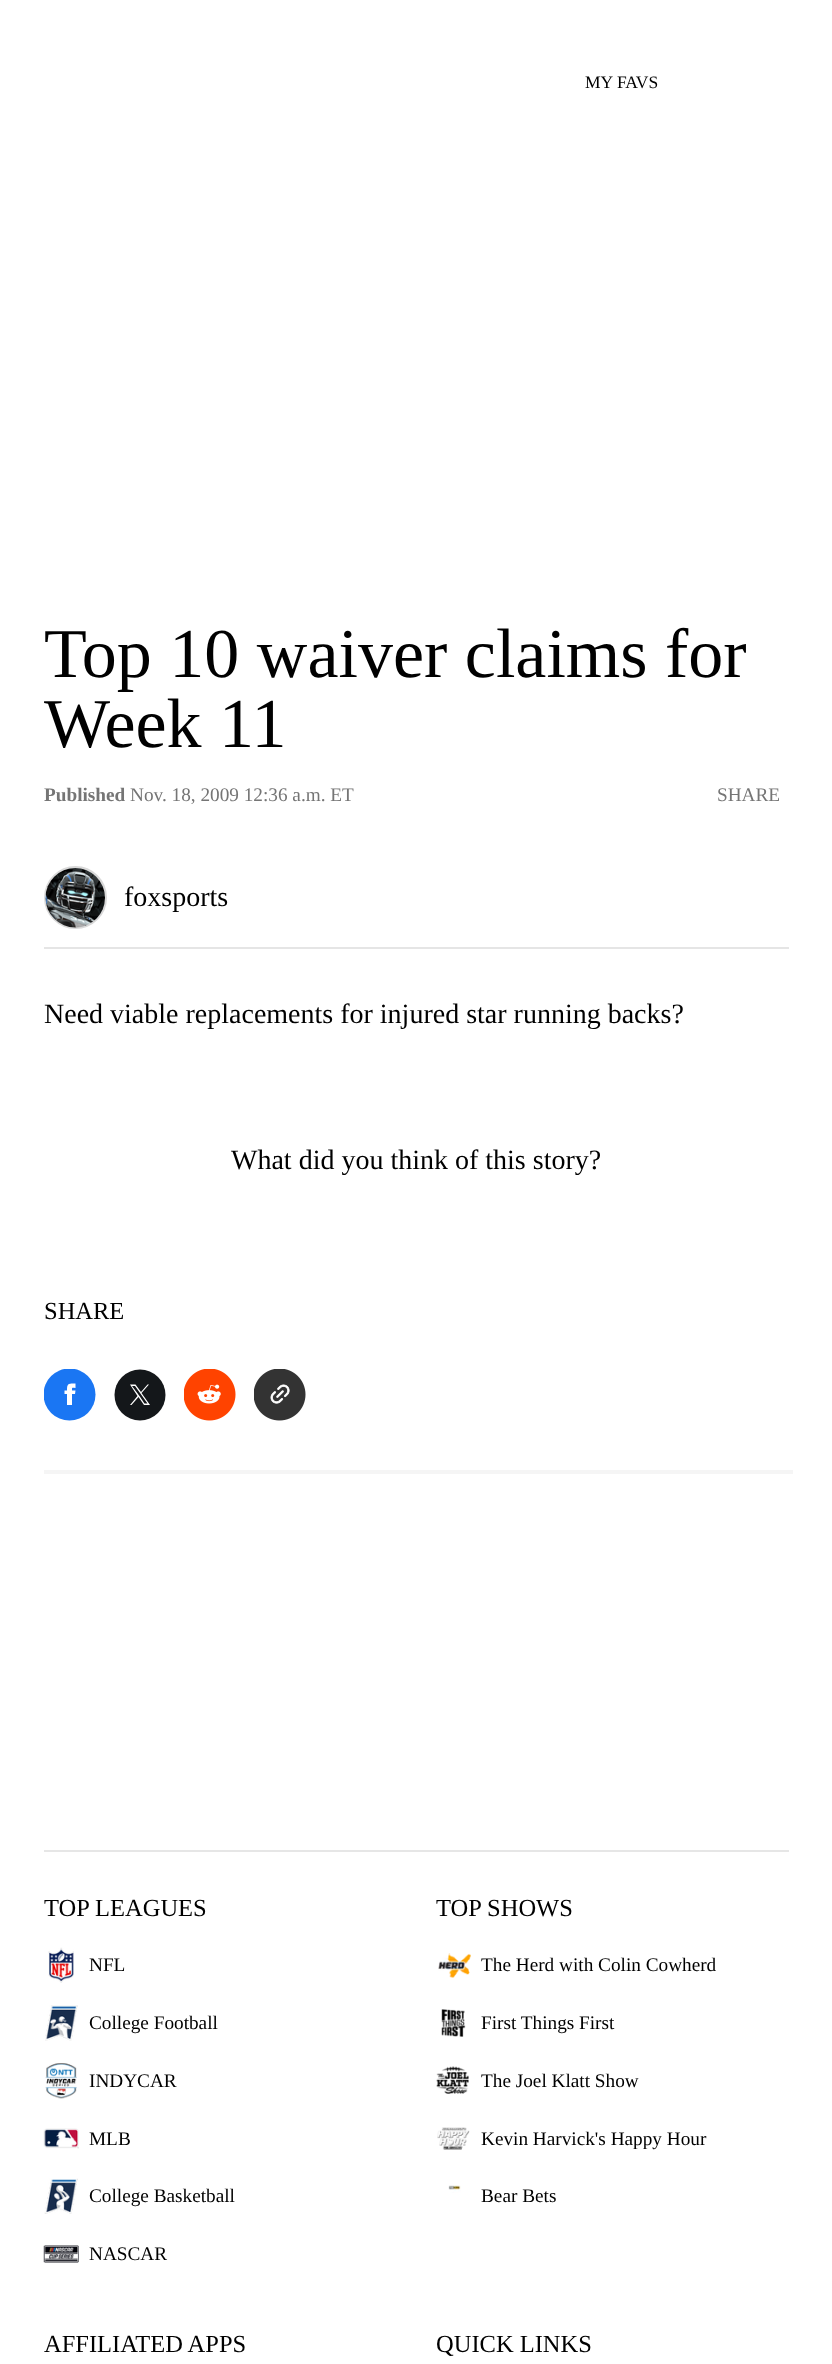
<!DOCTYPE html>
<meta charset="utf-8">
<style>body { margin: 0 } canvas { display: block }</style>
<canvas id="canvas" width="832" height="2364"></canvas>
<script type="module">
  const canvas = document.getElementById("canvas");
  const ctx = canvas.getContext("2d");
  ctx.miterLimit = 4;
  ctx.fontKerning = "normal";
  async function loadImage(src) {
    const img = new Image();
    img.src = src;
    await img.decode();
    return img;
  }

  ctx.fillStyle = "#ffffff";
  ctx.fillRect(0, 0, 832, 2364);
  ctx.font = "17.5px Liberation Serif";
  ctx.fillStyle = "#000000";
  ctx.fillText("MY FAVS", 585, 88);
  ctx.font = "70px Liberation Serif";
  ctx.fillText("Top 10 waiver claims for", 44, 677);
  ctx.fillText("Week 11", 44, 747);
  ctx.font = "bold 19.25px Liberation Serif";
  ctx.fillStyle = "#757575";
  ctx.fillText("Published", 44, 801);
  ctx.font = "19.25px Liberation Serif";
  ctx.fillText("Nov. 18, 2009 12:36 a.m. ET", 130, 801);
  ctx.fillText("SHARE", 717, 801);
  ctx.fillStyle = "#e5e5e5";
  ctx.fillRect(44, 947, 745, 2);
  ctx.beginPath();
  ctx.arc(75.5, 897.5, 30.5, 0, Math.PI * 2);
  ctx.strokeStyle = "#d9d9d9";
  ctx.lineWidth = 2;
  ctx.stroke();
  ctx.drawImage(await loadImage("img1.png"), 45, 868, 60, 60);
  ctx.font = "28px Liberation Serif";
  ctx.fillStyle = "#000000";
  ctx.fillText("foxsports", 124, 906);
  ctx.fillText("Need viable replacements for injured star running backs?", 44, 1023);
  ctx.fillText("What did you think of this story?", 231, 1169);
  ctx.font = "24.5px Liberation Serif";
  ctx.fillText("SHARE", 44, 1319);
  ctx.save();
  ctx.beginPath();
  ctx.rect(44, 1369, 52, 52);
  ctx.clip();
  ctx.fillStyle = "#1a76f3";
  ctx.beginPath();
  ctx.arc(69.5, 1394.5, 26, 0, Math.PI * 2);
  ctx.fill();
  ctx.restore();
  ctx.fillStyle = "#ffffff";
  ctx.beginPath();
  ctx.moveTo(67, 1390.5);
  ctx.lineTo(64.5, 1390.5);
  ctx.lineTo(64.5, 1394);
  ctx.lineTo(67, 1394);
  ctx.lineTo(67, 1405);
  ctx.lineTo(72, 1405);
  ctx.lineTo(72, 1394);
  ctx.lineTo(75, 1394);
  ctx.lineTo(75.5, 1390.5);
  ctx.lineTo(72, 1390.5);
  ctx.bezierCurveTo(72, 1387, 72, 1388, 75.5, 1388);
  ctx.lineTo(75.5, 1383.5);
  ctx.bezierCurveTo(68.5, 1383.5, 67, 1383, 67, 1390.5);
  ctx.closePath();
  ctx.fill();
  ctx.fillStyle = "#14171a";
  ctx.beginPath();
  ctx.arc(140, 1395, 25.5, 0, Math.PI * 2);
  ctx.fill();
  ctx.fillStyle = "#ffffff";
  ctx.beginPath();
  ctx.moveTo(141.5, 1393);
  ctx.lineTo(149, 1384.5);
  ctx.lineTo(147.5, 1384.5);
  ctx.lineTo(141, 1392);
  ctx.lineTo(135.5, 1384.5);
  ctx.lineTo(130, 1384.5);
  ctx.lineTo(137.5, 1396);
  ctx.lineTo(130, 1405);
  ctx.lineTo(131.5, 1405);
  ctx.lineTo(138.5, 1397);
  ctx.lineTo(144, 1405);
  ctx.lineTo(150, 1405);
  ctx.closePath();
  ctx.moveTo(139.5, 1396);
  ctx.lineTo(132, 1386);
  ctx.lineTo(135, 1386);
  ctx.lineTo(147.5, 1403.5);
  ctx.lineTo(144.5, 1403.5);
  ctx.closePath();
  ctx.fill();
  ctx.drawImage(await loadImage("img2.png"), 184, 1369, 52, 52);
  ctx.drawImage(await loadImage("img3.png"), 254, 1369, 52, 52);
  ctx.fillStyle = "#f5f5f5";
  ctx.fillRect(44, 1470, 749, 4);
  ctx.fillStyle = "#e6e6e6";
  ctx.fillRect(44, 1850, 745, 2);
  ctx.fillStyle = "#000000";
  ctx.fillText("TOP LEAGUES", 44, 1916);
  ctx.drawImage(await loadImage("img4.png"), 48, 1947, 26, 36);
  ctx.font = "19.25px Liberation Serif";
  ctx.fillText("NFL", 89, 1971);
  ctx.drawImage(await loadImage("img5.png"), 45, 2005, 33, 36);
  ctx.fillText("College Football", 89, 2029);
  ctx.drawImage(await loadImage("img6.png"), 45, 2063, 32, 36);
  ctx.fillText("INDYCAR", 89, 2087);
  ctx.drawImage(await loadImage("img7.png"), 43, 2128, 36, 21);
  ctx.fillText("MLB", 89, 2145);
  ctx.drawImage(await loadImage("img8.png"), 44, 2178, 34, 36);
  ctx.fillText("College Basketball", 89, 2202);
  ctx.drawImage(await loadImage("img9.png"), 43, 2245, 36, 18);
  ctx.fillText("NASCAR", 89, 2260);
  ctx.font = "24.5px Liberation Serif";
  ctx.fillText("TOP SHOWS", 436, 1916);
  ctx.drawImage(await loadImage("img10.png"), 438, 1953, 33, 25);
  ctx.font = "19.25px Liberation Serif";
  ctx.fillText("The Herd with Colin Cowherd", 481, 1971);
  ctx.drawImage(await loadImage("img11.png"), 441, 2009, 25, 28);
  ctx.fillText("First Things First", 481, 2029);
  ctx.drawImage(await loadImage("img12.png"), 436, 2066, 33, 28);
  ctx.fillText("The Joel Klatt Show", 481, 2087);
  ctx.drawImage(await loadImage("img13.png"), 437, 2127, 33, 23);
  ctx.fillText("Kevin Harvick's Happy Hour", 481, 2145);
  ctx.drawImage(await loadImage("img14.png"), 448, 2185, 13, 8);
  ctx.fillText("Bear Bets", 481, 2202);
  ctx.font = "24.5px Liberation Serif";
  ctx.fillText("AFFILIATED APPS", 44, 2352);
  ctx.fillText("QUICK LINKS", 436, 2352);
</script>
